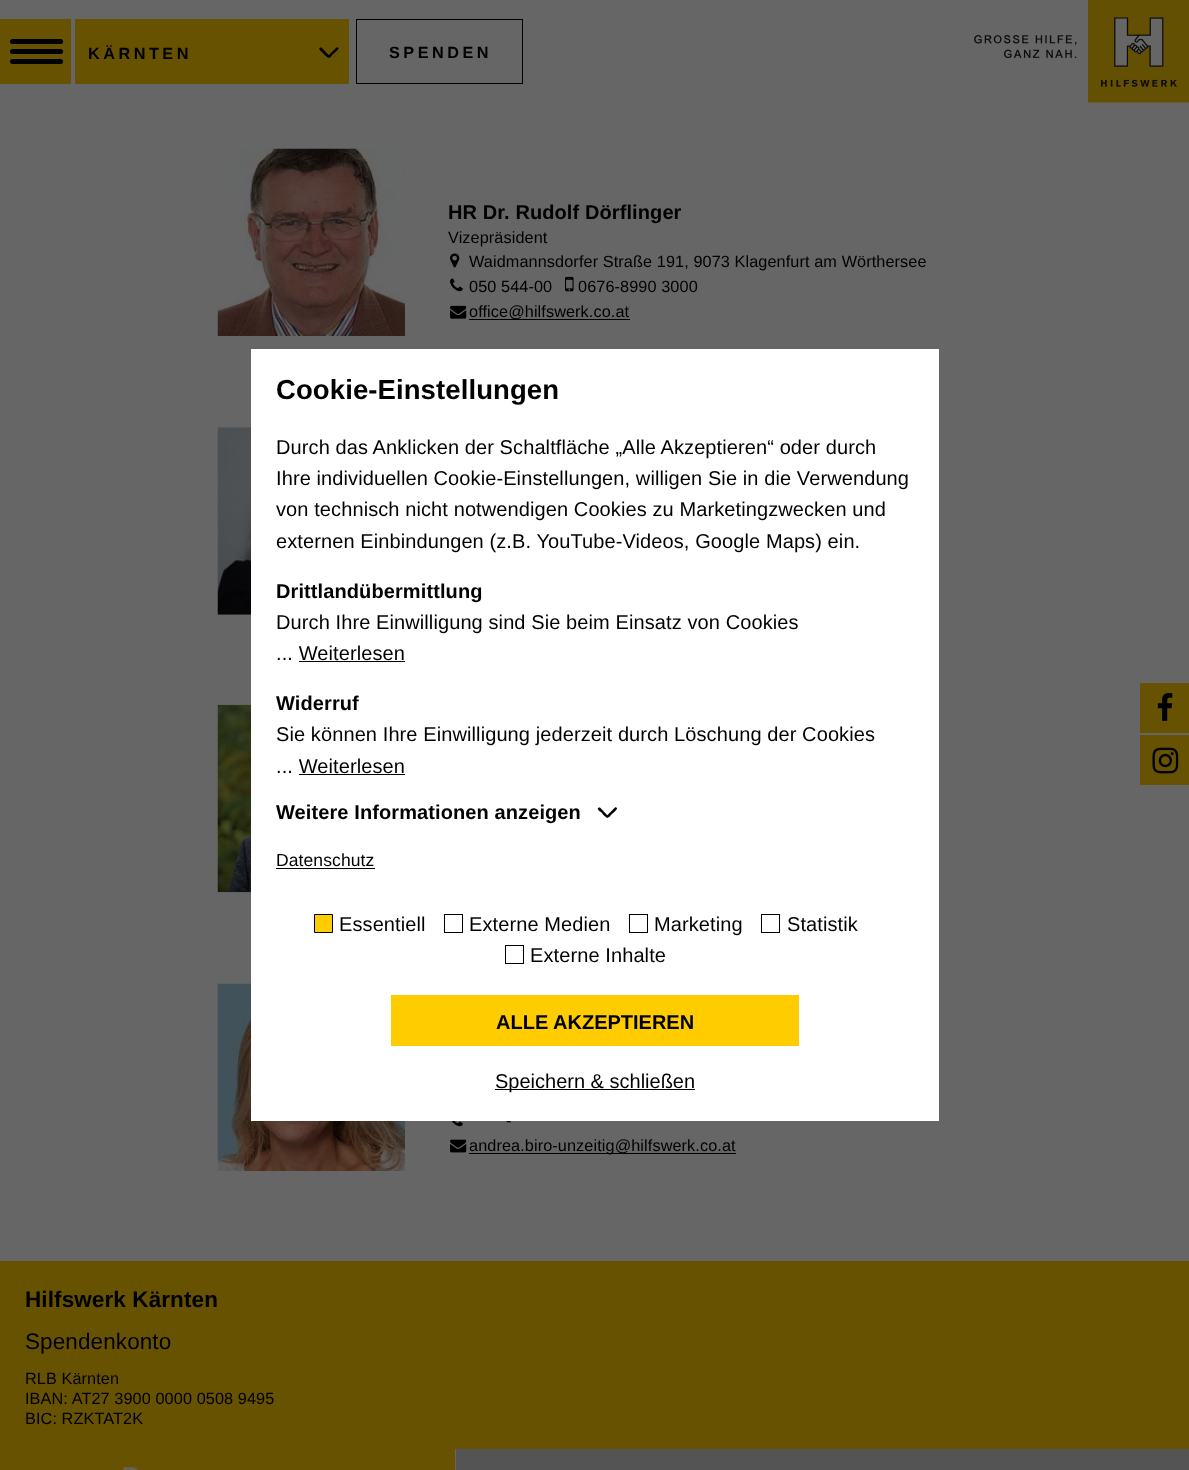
<!DOCTYPE html>
<meta charset="utf-8">
<style>body { margin: 0 } canvas { display: block }</style>
<canvas id="canvas" width="1189" height="1470"></canvas>
<script type="module">
  const canvas = document.getElementById("canvas");
  const ctx = canvas.getContext("2d");
  ctx.miterLimit = 4;
  ctx.fontKerning = "normal";
  async function loadImage(src) {
    const img = new Image();
    img.src = src;
    await img.decode();
    return img;
  }

  ctx.fillStyle = "#666666";
  ctx.fillRect(0, 0, 1189, 1470);
  ctx.fillStyle = "#665200";
  ctx.fillRect(0, 19, 71, 65);
  ctx.fillStyle = "#000000";
  ctx.beginPath();
  ctx.roundRect(10, 39, 53, 5, 2.5);
  ctx.fill();
  ctx.beginPath();
  ctx.roundRect(10, 49, 53, 5, 2.5);
  ctx.fill();
  ctx.beginPath();
  ctx.roundRect(10, 59, 53, 5, 2.5);
  ctx.fill();
  ctx.fillStyle = "#665200";
  ctx.fillRect(75, 19, 274, 65);
  ctx.letterSpacing = "3.5px";
  ctx.font = "bold 16.25px Liberation Sans";
  ctx.fillStyle = "#000000";
  ctx.fillText("KÄRNTEN", 88, 59);
  ctx.beginPath();
  ctx.moveTo(321.5, 47.5);
  ctx.lineTo(329.5, 56);
  ctx.bezierCurveTo(330, 56.5, 329.5, 57.5, 329, 57.5);
  ctx.bezierCurveTo(327.5, 58.5, 323, 53, 322, 52);
  ctx.bezierCurveTo(321.5, 51.5, 318.5, 49.5, 319.5, 48);
  ctx.lineTo(320.5, 47.5);
  ctx.closePath();
  ctx.fill();
  ctx.beginPath();
  ctx.moveTo(328.5, 55.5);
  ctx.lineTo(336.5, 47.5);
  ctx.bezierCurveTo(337, 47, 338, 47.5, 338.5, 48);
  ctx.bezierCurveTo(339, 49.5, 333.5, 53.5, 332.5, 54.5);
  ctx.bezierCurveTo(332, 55.5, 330, 58.5, 328.5, 57.5);
  ctx.lineTo(328, 56.5);
  ctx.closePath();
  ctx.fill();
  ctx.strokeStyle = "#000000";
  ctx.strokeRect(356.5, 19.5, 166, 64);
  ctx.fillText("SPENDEN", 389, 58);
  ctx.drawImage(await loadImage("img1.png"), 974, 35, 103, 23);
  ctx.drawImage(await loadImage("img2.png"), 1088, 0, 101, 103);
  ctx.fillStyle = "#665200";
  ctx.fillRect(1140, 683, 49, 50);
  ctx.drawImage(await loadImage("img3.png"), 1157, 693, 16, 28);
  ctx.fillRect(1140, 735, 49, 50);
  ctx.drawImage(await loadImage("img4.png"), 1152, 747, 27, 27);
  ctx.drawImage(await loadImage("img5.png"), 217, 148, 188, 188);
  ctx.letterSpacing = "0.1px";
  ctx.font = "bold 20px Liberation Sans";
  ctx.fillStyle = "#000000";
  ctx.fillText("HR Dr. Rudolf Dörflinger", 448, 219);
  ctx.font = "16.25px Liberation Sans";
  ctx.fillText("Vizepräsident", 448, 243);
  ctx.drawImage(await loadImage("img6.png"), 450, 253, 10, 15);
  ctx.fillText("Waidmannsdorfer Straße 191, 9073 Klagenfurt am Wörthersee", 469, 267);
  ctx.drawImage(await loadImage("img7.png"), 450, 278, 13, 14);
  ctx.fillText("050 544-00", 469, 292);
  ctx.drawImage(await loadImage("img8.png"), 565, 276, 9, 16);
  ctx.fillText("0676-8990 3000", 578, 292);
  ctx.drawImage(await loadImage("img9.png"), 450, 305, 17, 14);
  ctx.fillRect(469, 319, 161, 1);
  ctx.fillText("office@hilfswerk.co.at", 469, 317);
  ctx.drawImage(await loadImage("img10.png"), 217, 427, 34, 188);
  ctx.drawImage(await loadImage("img11.png"), 217, 704, 34, 189);
  ctx.drawImage(await loadImage("img12.png"), 217, 983, 188, 188);
  ctx.drawImage(await loadImage("img13.png"), 451, 1121, 12, 6);
  ctx.fillText("-", 506, 1126);
  ctx.drawImage(await loadImage("img14.png"), 450, 1139, 17, 14);
  ctx.fillRect(469, 1153, 267, 1);
  ctx.fillText("andrea.biro-unzeitig@hilfswerk.co.at", 469, 1151);
  ctx.fillStyle = "#665200";
  ctx.fillRect(0, 1261, 1189, 188);
  ctx.font = "bold 22.5px Liberation Sans";
  ctx.fillStyle = "#000000";
  ctx.fillText("Hilfswerk Kärnten", 25, 1307);
  ctx.font = "22.5px Liberation Sans";
  ctx.fillText("Spendenkonto", 25, 1349);
  ctx.font = "16.25px Liberation Sans";
  ctx.fillText("RLB Kärnten", 25, 1384);
  ctx.fillText("IBAN: AT27 3900 0000 0508 9495", 25, 1404);
  ctx.fillText("BIC: RZKTAT2K", 25, 1424);
  ctx.fillStyle = "#665200";
  ctx.fillRect(0, 1449, 455, 21);
  ctx.drawImage(await loadImage("img15.png"), 122, 1467, 22, 3);
  ctx.fillStyle = "#545454";
  ctx.fillRect(456, 1449, 733, 21);
  ctx.fillStyle = "#ffffff";
  ctx.fillRect(251, 349, 688, 772);
  ctx.font = "bold 27.5px Liberation Sans";
  ctx.fillStyle = "#000000";
  ctx.fillText("Cookie-Einstellungen", 276, 399);
  ctx.font = "20px Liberation Sans";
  ctx.fillText("Durch das Anklicken der Schaltfläche „Alle Akzeptieren“ oder durch", 276, 454);
  ctx.fillText("Ihre individuellen Cookie-Einstellungen, willigen Sie in die Verwendung", 276, 485);
  ctx.fillText("von technisch nicht notwendigen Cookies zu Marketingzwecken und", 276, 516);
  ctx.fillText("externen Einbindungen (z.B. YouTube-Videos, Google Maps) ein.", 276, 548);
  ctx.font = "bold 20px Liberation Sans";
  ctx.fillText("Drittlandübermittlung", 276, 598);
  ctx.font = "20px Liberation Sans";
  ctx.fillText("Durch Ihre Einwilligung sind Sie beim Einsatz von Cookies", 276, 629);
  ctx.fillText("... Weiterlesen", 276, 660);
  ctx.fillRect(294, 661, 111, 1);
  ctx.fillStyle = "#ffffff";
  ctx.fillRect(294, 661, 5, 1);
  ctx.font = "bold 20px Liberation Sans";
  ctx.fillStyle = "#000000";
  ctx.fillText("Widerruf", 276, 710);
  ctx.font = "20px Liberation Sans";
  ctx.fillText("Sie können Ihre Einwilligung jederzeit durch Löschung der Cookies", 276, 741);
  ctx.fillText("... Weiterlesen", 276, 773);
  ctx.fillRect(294, 774, 111, 1);
  ctx.fillStyle = "#ffffff";
  ctx.fillRect(294, 774, 5, 1);
  ctx.font = "bold 20px Liberation Sans";
  ctx.fillStyle = "#000000";
  ctx.fillText("Weitere Informationen anzeigen", 276, 819);
  ctx.beginPath();
  ctx.moveTo(600, 807.5);
  ctx.lineTo(608, 816);
  ctx.bezierCurveTo(608.5, 816.5, 608, 817.5, 607.5, 817.5);
  ctx.bezierCurveTo(606, 818.5, 602, 813, 601, 812);
  ctx.bezierCurveTo(600, 811.5, 597, 809.5, 598, 808);
  ctx.lineTo(599, 807.5);
  ctx.closePath();
  ctx.fill();
  ctx.beginPath();
  ctx.moveTo(607, 815.5);
  ctx.lineTo(615, 807.5);
  ctx.bezierCurveTo(615.5, 807, 616.5, 807.5, 617, 808);
  ctx.bezierCurveTo(617.5, 809.5, 612.5, 813.5, 611.5, 814.5);
  ctx.bezierCurveTo(610.5, 815.5, 608.5, 818.5, 607, 817.5);
  ctx.lineTo(606.5, 816.5);
  ctx.closePath();
  ctx.fill();
  ctx.font = "17.5px Liberation Sans";
  ctx.fillText("Datenschutz", 276, 866);
  ctx.fillRect(276, 868, 99, 1);
  ctx.fillStyle = "#ffcc00";
  ctx.beginPath();
  ctx.rect(314.5, 914.5, 18, 18);
  ctx.fill();
  ctx.stroke();
  ctx.font = "20px Liberation Sans";
  ctx.fillStyle = "#000000";
  ctx.fillText("Essentiell", 339, 931);
  ctx.strokeRect(444.5, 914.5, 18, 18);
  ctx.fillText("Externe Medien", 469, 931);
  ctx.strokeRect(629.5, 914.5, 18, 18);
  ctx.fillText("Marketing", 654, 931);
  ctx.strokeRect(761.5, 914.5, 18, 18);
  ctx.fillText("Statistik", 787, 931);
  ctx.strokeRect(505.5, 945.5, 18, 18);
  ctx.fillText("Externe Inhalte", 530, 962);
  ctx.fillStyle = "#ffcc00";
  ctx.fillRect(391, 995, 408, 51);
  ctx.letterSpacing = "0px";
  ctx.font = "bold 20px Liberation Sans";
  ctx.fillStyle = "#000000";
  ctx.fillText("ALLE AKZEPTIEREN", 496, 1029);
  ctx.fillRect(495, 1089, 200, 1);
  ctx.font = "20px Liberation Sans";
  ctx.fillText("Speichern & schließen", 495, 1088);
</script>
